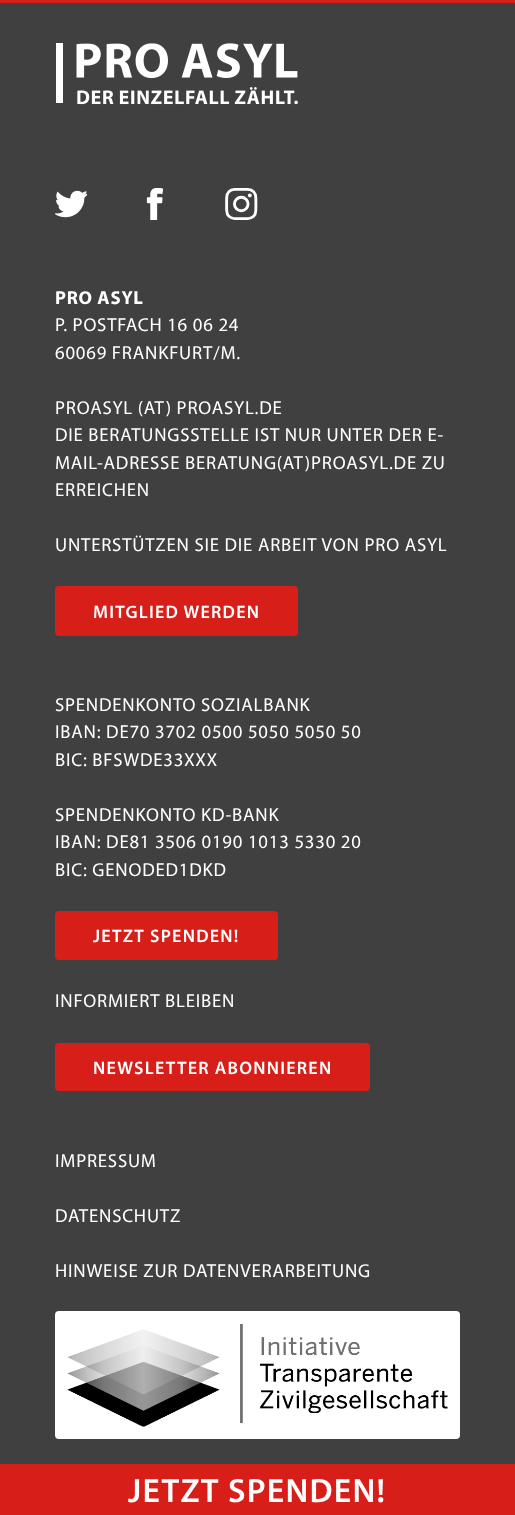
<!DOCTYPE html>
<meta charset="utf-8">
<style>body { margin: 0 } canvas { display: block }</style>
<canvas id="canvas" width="515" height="1515"></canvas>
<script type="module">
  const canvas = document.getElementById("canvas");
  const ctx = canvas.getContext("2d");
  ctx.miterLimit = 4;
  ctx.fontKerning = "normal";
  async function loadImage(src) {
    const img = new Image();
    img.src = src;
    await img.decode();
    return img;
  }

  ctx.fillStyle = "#404040";
  ctx.fillRect(0, 0, 515, 1515);
  ctx.fillStyle = "#d71e19";
  ctx.fillRect(0, 0, 515, 3);
  ctx.drawImage(await loadImage("img1.png"), 56, 43, 242, 62);
  ctx.drawImage(await loadImage("img2.png"), 55, 190, 33, 28);
  ctx.drawImage(await loadImage("img3.png"), 146, 188, 18, 32);
  ctx.drawImage(await loadImage("img4.png"), 225, 188, 33, 32);
  ctx.letterSpacing = "0.8px";
  ctx.font = "bold 18.75px Myriad";
  ctx.fillStyle = "#ffffff";
  ctx.fillText("PRO ASYL", 55, 304);
  ctx.font = "18.75px Myriad";
  ctx.fillText("P. POSTFACH 16 06 24", 55, 331);
  ctx.fillText("60069 FRANKFURT/M.", 55, 359);
  ctx.fillText("PROASYL (AT) PROASYL.DE", 55, 414);
  ctx.fillText("DIE BERATUNGSSTELLE IST NUR UNTER DER E-", 55, 441);
  ctx.fillText("MAIL-ADRESSE BERATUNG(AT)PROASYL.DE ZU", 55, 469);
  ctx.fillText("ERREICHEN", 55, 496);
  ctx.fillText("UNTERSTÜTZEN SIE DIE ARBEIT VON PRO ASYL", 55, 551);
  ctx.fillStyle = "#d71e19";
  ctx.beginPath();
  ctx.roundRect(55, 586, 243, 50, 4);
  ctx.fill();
  ctx.letterSpacing = "1.25px";
  ctx.font = "600 18.1px Myriad";
  ctx.fillStyle = "#ffffff";
  ctx.fillText("MITGLIED WERDEN", 93, 618);
  ctx.letterSpacing = "0.8px";
  ctx.font = "18.75px Myriad";
  ctx.fillText("SPENDENKONTO SOZIALBANK", 55, 711);
  ctx.fillText("IBAN: DE70 3702 0500 5050 5050 50", 55, 738);
  ctx.fillText("BIC: BFSWDE33XXX", 55, 766);
  ctx.fillText("SPENDENKONTO KD-BANK", 55, 821);
  ctx.fillText("IBAN: DE81 3506 0190 1013 5330 20", 55, 848);
  ctx.fillText("BIC: GENODED1DKD", 55, 876);
  ctx.fillStyle = "#d71e19";
  ctx.beginPath();
  ctx.roundRect(55, 911, 223, 49, 4);
  ctx.fill();
  ctx.letterSpacing = "1.25px";
  ctx.font = "600 18.1px Myriad";
  ctx.fillStyle = "#ffffff";
  ctx.fillText("JETZT SPENDEN!", 93, 942);
  ctx.letterSpacing = "0.8px";
  ctx.font = "18.75px Myriad";
  ctx.fillText("INFORMIERT BLEIBEN", 55, 1007);
  ctx.fillStyle = "#d71e19";
  ctx.beginPath();
  ctx.roundRect(55, 1043, 315, 48, 4);
  ctx.fill();
  ctx.letterSpacing = "1.25px";
  ctx.font = "600 18.1px Myriad";
  ctx.fillStyle = "#ffffff";
  ctx.fillText("NEWSLETTER ABONNIEREN", 93, 1074);
  ctx.letterSpacing = "0.8px";
  ctx.font = "18.75px Myriad";
  ctx.fillText("IMPRESSUM", 55, 1167);
  ctx.fillText("DATENSCHUTZ", 55, 1222);
  ctx.fillText("HINWEISE ZUR DATENVERARBEITUNG", 55, 1277);
  ctx.beginPath();
  ctx.roundRect(55, 1311, 405, 128, 4);
  ctx.fill();
  ctx.drawImage(await loadImage("img5.png"), 67, 1324, 381, 103);
  ctx.fillStyle = "#d71e19";
  ctx.fillRect(0, 1464, 515, 51);
  ctx.letterSpacing = "1.25px";
  ctx.font = "600 33.75px Myriad";
  ctx.fillStyle = "#ffffff";
  ctx.fillText("JETZT SPENDEN!", 128, 1502);
</script>
